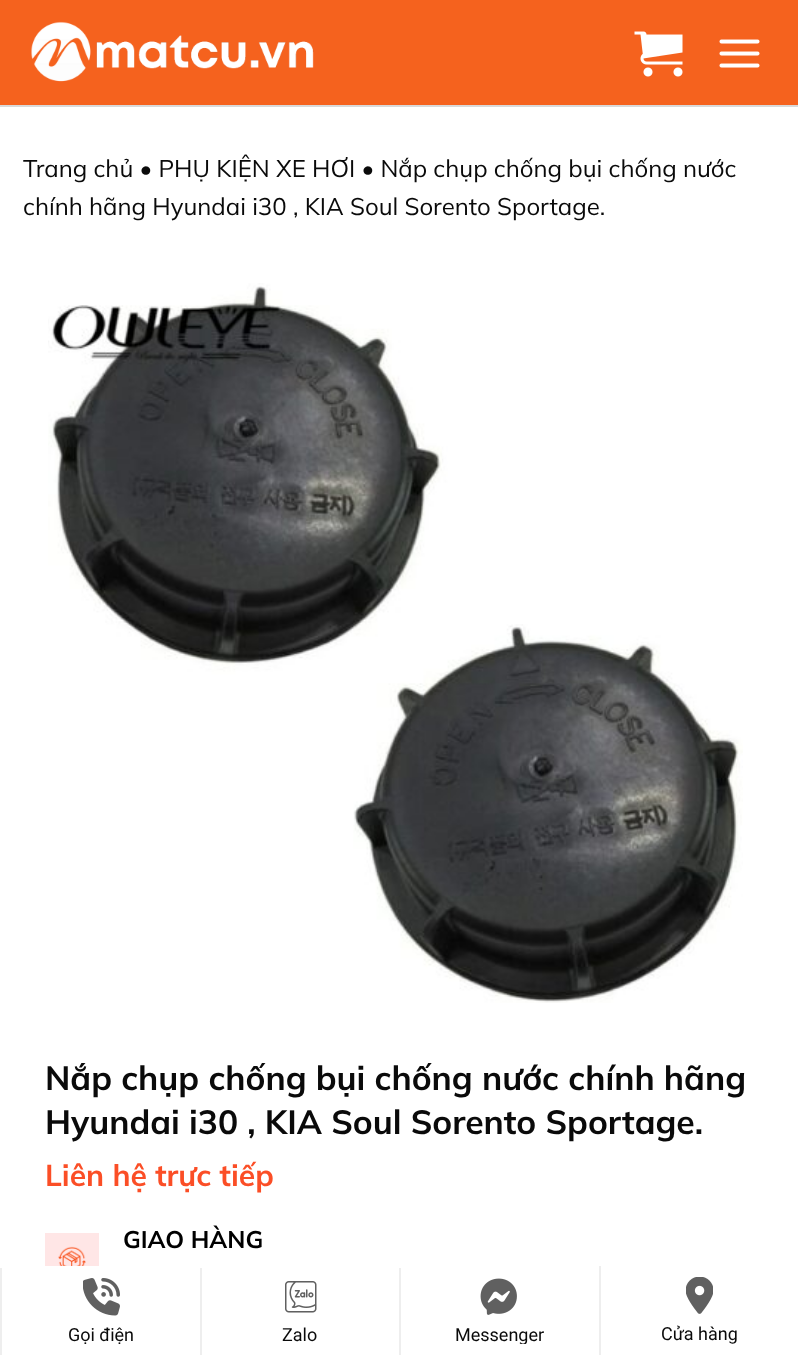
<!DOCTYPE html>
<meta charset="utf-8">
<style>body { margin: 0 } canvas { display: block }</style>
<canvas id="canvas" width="798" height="1355"></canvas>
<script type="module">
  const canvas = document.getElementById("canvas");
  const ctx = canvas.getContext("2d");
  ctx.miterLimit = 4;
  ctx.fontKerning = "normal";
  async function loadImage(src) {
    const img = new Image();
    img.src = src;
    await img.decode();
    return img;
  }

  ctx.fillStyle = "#ffffff";
  ctx.fillRect(0, 0, 798, 1355);
  ctx.fillStyle = "#f5621e";
  ctx.fillRect(0, 0, 798, 105);
  ctx.drawImage(await loadImage("img1.png"), 31, 21, 283, 61);
  ctx.drawImage(await loadImage("img2.png"), 634, 31, 49, 46);
  ctx.drawImage(await loadImage("img3.png"), 719, 39, 41, 29);
  ctx.fillStyle = "#d9d9d9";
  ctx.fillRect(0, 105, 798, 2);
  ctx.font = "24px Mulish";
  ctx.fillStyle = "#0a0a0a";
  ctx.fillText("Trang chủ • PHỤ KIỆN XE HƠI • Nắp chụp chống bụi chống nước", 23, 177);
  ctx.fillText("chính hãng Hyundai i30 , KIA Soul Sorento Sportage.", 23, 215);
  ctx.drawImage(await loadImage("img4.png"), 48, 283, 695, 720);
  ctx.font = "bold 33.6px Mulish";
  ctx.fillText("Nắp chụp chống bụi chống nước chính hãng", 45, 1090);
  ctx.fillText("Hyundai i30 , KIA Soul Sorento Sportage.", 45, 1134);
  ctx.font = "bold 30px Mulish";
  ctx.fillStyle = "#fb4e26";
  ctx.fillText("Liên hệ trực tiếp", 45, 1186);
  ctx.fillStyle = "#ffe6e6";
  ctx.fillRect(45, 1233, 54, 33);
  ctx.drawImage(await loadImage("img5.png"), 58, 1246, 28, 20);
  ctx.font = "bold 24px Mulish";
  ctx.fillStyle = "#000000";
  ctx.fillText("GIAO HÀNG", 123, 1248);
  ctx.fillStyle = "#eeeeee";
  ctx.fillRect(0, 1268, 2, 87);
  ctx.drawImage(await loadImage("img6.png"), 83, 1278, 37, 38);
  ctx.font = "18px Roboto";
  ctx.fillStyle = "#0a0a0a";
  ctx.fillText("Gọi điện", 68, 1341);
  ctx.fillStyle = "#eeeeee";
  ctx.fillRect(200, 1268, 2, 87);
  ctx.drawImage(await loadImage("img7.png"), 285, 1281, 32, 32);
  ctx.fillStyle = "#0a0a0a";
  ctx.fillText("Zalo", 282, 1341);
  ctx.fillStyle = "#eeeeee";
  ctx.fillRect(399, 1268, 2, 87);
  ctx.drawImage(await loadImage("img8.png"), 480, 1278, 37, 37);
  ctx.save();
  ctx.beginPath();
  ctx.rect(455, 1278, 90, 66);
  ctx.clip();
  ctx.fillStyle = "#0a0a0a";
  ctx.fillText("Messenger", 455, 1341);
  ctx.restore();
  ctx.fillRect(599, 1266, 2, 89);
  ctx.drawImage(await loadImage("img9.png"), 686, 1277, 27, 37);
  ctx.fillStyle = "#0a0a0a";
  ctx.fillText("Cửa hàng", 661, 1340);
</script>
